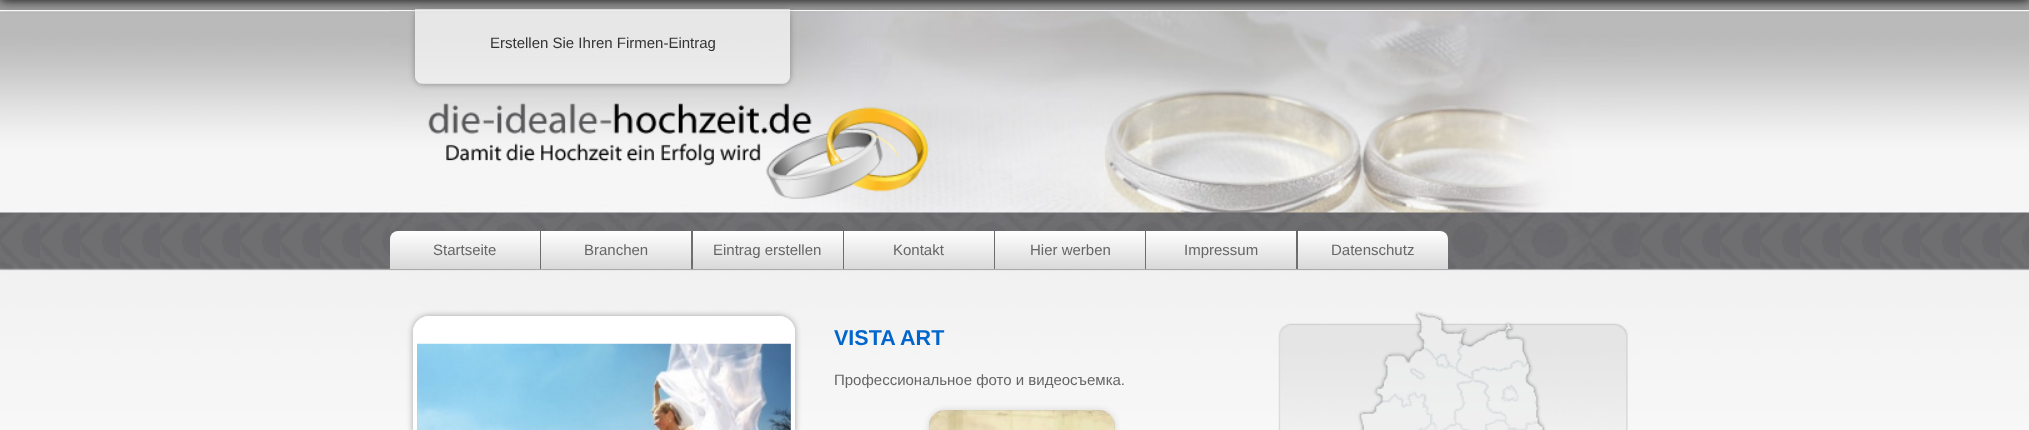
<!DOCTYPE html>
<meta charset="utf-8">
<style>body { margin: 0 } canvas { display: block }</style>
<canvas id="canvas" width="2029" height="430"></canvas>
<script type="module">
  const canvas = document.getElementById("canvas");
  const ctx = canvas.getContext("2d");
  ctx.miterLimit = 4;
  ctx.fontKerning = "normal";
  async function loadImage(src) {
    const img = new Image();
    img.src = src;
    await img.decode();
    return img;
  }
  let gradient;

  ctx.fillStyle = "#ffffff";
  ctx.fillRect(0, 0, 2029, 430);
  ctx.drawImage(await loadImage("img1.png"), 0, 11, 2029, 419);
  ctx.fillStyle = "#999999";
  ctx.fillRect(0, 0, 2029, 10);
  ctx.drawImage(await loadImage("img2.png"), 390, 11, 1250, 258);
  ctx.save();
  ctx.beginPath();
  ctx.moveTo(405, 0);
  ctx.lineTo(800, 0);
  ctx.lineTo(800, 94);
  ctx.lineTo(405, 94);
  ctx.closePath();
  ctx.moveTo(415, 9);
  ctx.lineTo(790, 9);
  ctx.lineTo(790, 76);
  ctx.bezierCurveTo(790, 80.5, 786.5, 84, 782, 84);
  ctx.lineTo(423, 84);
  ctx.bezierCurveTo(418.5, 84, 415, 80.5, 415, 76);
  ctx.closePath();
  ctx.clip("evenodd");
  ctx.fillStyle = "#888888";
  ctx.filter = "blur(3px)";
  ctx.beginPath();
  ctx.roundRect(415, 9, 375, 75, 8);
  ctx.fill();
  ctx.filter = "none";
  ctx.restore();
  ctx.drawImage(await loadImage("img3.png"), 415, 8, 375, 76);
  ctx.fillStyle = "#000000";
  ctx.filter = "blur(6px)";
  ctx.beginPath();
  ctx.rect(0, -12, 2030, 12);
  ctx.fill();
  ctx.filter = "none";
  ctx.font = "15px Liberation Sans";
  ctx.fillStyle = "#333333";
  ctx.fillText("Erstellen Sie Ihren Firmen-Eintrag", 490, 48);
  ctx.drawImage(await loadImage("img4.png"), 428, 103, 501, 96);
  gradient = ctx.createLinearGradient(465, 231, 465, 269);
  gradient.addColorStop(0, "#ffffff");
  gradient.addColorStop(1, "#d9d9d9");
  ctx.fillStyle = gradient;
  ctx.beginPath();
  ctx.roundRect(390, 231, 150, 38, [8, 0, 0, 0]);
  ctx.fill();
  ctx.fillStyle = "#666666";
  ctx.fillText("Startseite", 433, 255);
  gradient = ctx.createLinearGradient(616, 231, 616, 269);
  gradient.addColorStop(0, "#ffffff");
  gradient.addColorStop(1, "#d9d9d9");
  ctx.fillStyle = gradient;
  ctx.fillRect(541, 231, 150, 38);
  ctx.fillStyle = "#666666";
  ctx.fillText("Branchen", 584, 255);
  gradient = ctx.createLinearGradient(768, 231, 768, 269);
  gradient.addColorStop(0, "#ffffff");
  gradient.addColorStop(1, "#d9d9d9");
  ctx.fillStyle = gradient;
  ctx.fillRect(693, 231, 150, 38);
  ctx.fillStyle = "#666666";
  ctx.fillText("Eintrag erstellen", 713, 255);
  gradient = ctx.createLinearGradient(919, 231, 919, 269);
  gradient.addColorStop(0, "#ffffff");
  gradient.addColorStop(1, "#d9d9d9");
  ctx.fillStyle = gradient;
  ctx.fillRect(844, 231, 150, 38);
  ctx.fillStyle = "#666666";
  ctx.fillText("Kontakt", 893, 255);
  gradient = ctx.createLinearGradient(1070, 231, 1070, 269);
  gradient.addColorStop(0, "#ffffff");
  gradient.addColorStop(1, "#d9d9d9");
  ctx.fillStyle = gradient;
  ctx.fillRect(995, 231, 150, 38);
  ctx.fillStyle = "#666666";
  ctx.fillText("Hier werben", 1030, 255);
  gradient = ctx.createLinearGradient(1221, 231, 1221, 269);
  gradient.addColorStop(0, "#ffffff");
  gradient.addColorStop(1, "#d9d9d9");
  ctx.fillStyle = gradient;
  ctx.fillRect(1146, 231, 150, 38);
  ctx.fillStyle = "#666666";
  ctx.fillText("Impressum", 1184, 255);
  gradient = ctx.createLinearGradient(1373, 231, 1373, 269);
  gradient.addColorStop(0, "#ffffff");
  gradient.addColorStop(1, "#d9d9d9");
  ctx.fillStyle = gradient;
  ctx.beginPath();
  ctx.roundRect(1298, 231, 150, 38, [0, 8, 0, 0]);
  ctx.fill();
  ctx.fillStyle = "#666666";
  ctx.fillText("Datenschutz", 1331, 255);
  ctx.fillStyle = "rgba(40, 40, 40, 0.4)";
  ctx.filter = "blur(3px)";
  ctx.beginPath();
  ctx.roundRect(413, 316, 382, 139, 16);
  ctx.fill();
  ctx.filter = "none";
  ctx.fillStyle = "#ffffff";
  ctx.beginPath();
  ctx.roundRect(413, 316, 382, 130, 16);
  ctx.fill();
  ctx.drawImage(await loadImage("img5.png"), 417, 343, 374, 87);
  ctx.beginPath();
  ctx.roundRect(415, 318, 378, 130, 14);
  ctx.strokeStyle = "#ffffff";
  ctx.lineWidth = 4;
  ctx.stroke();
  ctx.font = "bold 21.5px Liberation Sans";
  ctx.fillStyle = "#0066cc";
  ctx.fillText("VISTA ART", 834, 345);
  ctx.font = "15px Liberation Sans";
  ctx.fillStyle = "#666666";
  ctx.fillText("Профессиональное фото и видеосъемка.", 834, 385);
  ctx.fillStyle = "rgba(90, 90, 90, 0.2)";
  ctx.filter = "blur(3px)";
  ctx.beginPath();
  ctx.roundRect(929, 410, 186, 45, 16);
  ctx.fill();
  ctx.filter = "none";
  ctx.drawImage(await loadImage("img6.png"), 929, 410, 186, 20);
  ctx.drawImage(await loadImage("img7.png"), 1278, 323, 350, 107);
  ctx.drawImage(await loadImage("img8.png"), 1358, 311, 188, 119);
</script>
